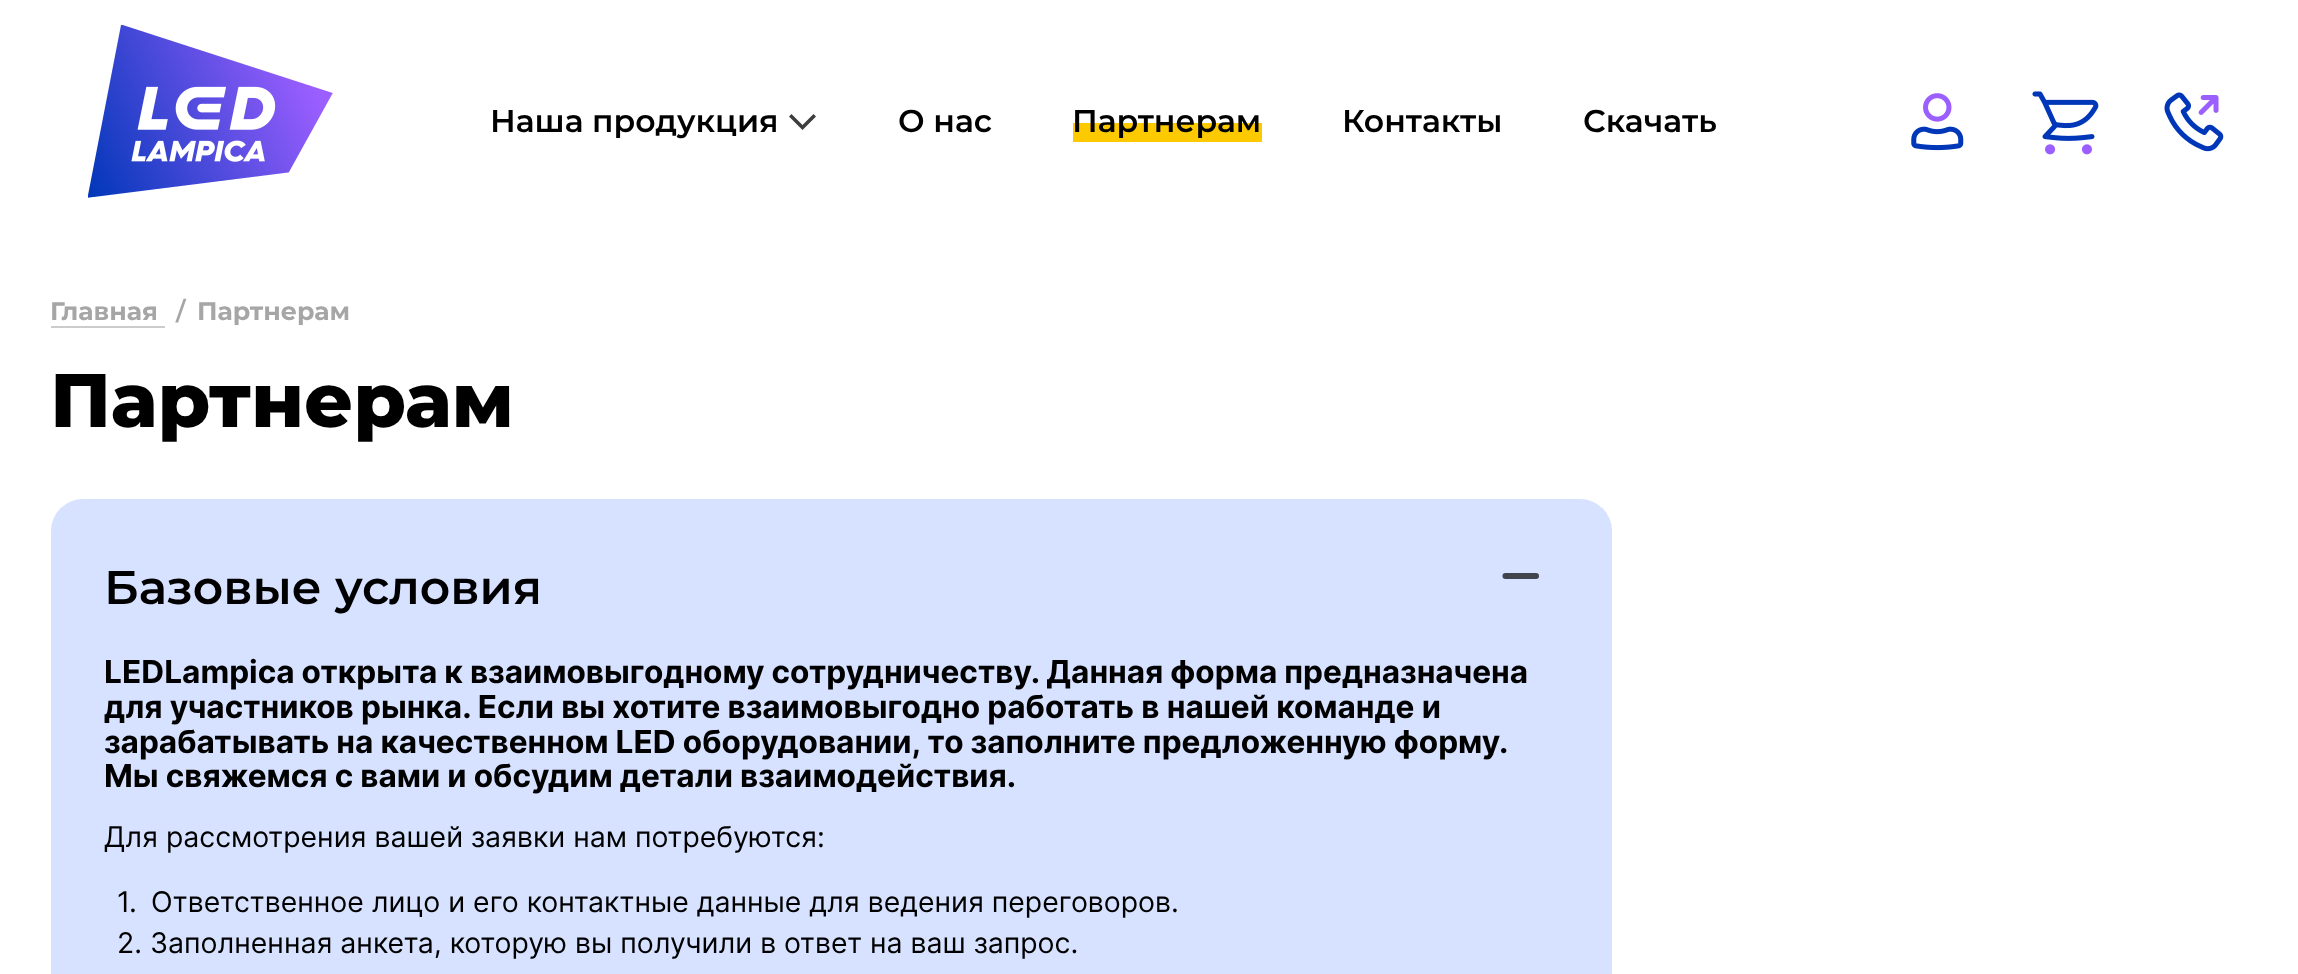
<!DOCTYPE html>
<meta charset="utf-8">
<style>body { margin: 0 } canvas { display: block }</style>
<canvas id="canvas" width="2298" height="974"></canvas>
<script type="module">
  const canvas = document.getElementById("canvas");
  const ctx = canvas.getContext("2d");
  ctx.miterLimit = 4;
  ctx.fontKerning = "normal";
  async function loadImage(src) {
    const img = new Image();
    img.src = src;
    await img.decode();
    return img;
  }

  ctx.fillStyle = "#ffffff";
  ctx.fillRect(0, 0, 2298, 974);
  ctx.drawImage(await loadImage("img1.png"), 88, 25, 245, 173);
  ctx.font = "600 31.5px Montserrat";
  ctx.fillStyle = "#000000";
  ctx.fillText("Наша продукция", 490, 132);
  ctx.fillStyle = "#3e3e3e";
  ctx.beginPath();
  ctx.moveTo(802.5, 125);
  ctx.lineTo(791.5, 114);
  ctx.lineTo(789, 116.5);
  ctx.lineTo(802.5, 130);
  ctx.lineTo(816, 116.5);
  ctx.lineTo(813.5, 114);
  ctx.closePath();
  ctx.fill("evenodd");
  ctx.fillStyle = "#000000";
  ctx.fillText("О нас", 898, 132);
  ctx.fillStyle = "#fdca00";
  ctx.fillRect(1073, 123, 189, 19);
  ctx.fillStyle = "#000000";
  ctx.fillText("Партнерам", 1072, 132);
  ctx.fillText("Контакты", 1342, 132);
  ctx.fillText("Скачать", 1583, 132);
  ctx.drawImage(await loadImage("img2.png"), 1911, 93, 53, 58);
  ctx.drawImage(await loadImage("img3.png"), 2032, 91, 67, 64);
  ctx.drawImage(await loadImage("img4.png"), 2164, 92, 60, 60);
  ctx.font = "bold 25.25px Montserrat";
  ctx.fillStyle = "#a6a6a6";
  ctx.fillText("Главная", 50, 320);
  ctx.fillStyle = "#cccccc";
  ctx.fillRect(51, 326, 114, 2);
  ctx.font = "600 25.25px Montserrat";
  ctx.fillStyle = "#a6a6a6";
  ctx.fillText("/", 176, 320);
  ctx.font = "bold 25.25px Montserrat";
  ctx.fillText("Партнерам", 197, 320);
  ctx.font = "800 75.75px Montserrat";
  ctx.fillStyle = "#000000";
  ctx.fillText("Партнерам", 50, 427);
  ctx.fillStyle = "#d6e2ff";
  ctx.beginPath();
  ctx.roundRect(51, 499, 1561, 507, 32);
  ctx.fill();
  ctx.font = "600 47.25px Montserrat";
  ctx.fillStyle = "#000000";
  ctx.fillText("Базовые условия", 104, 604);
  ctx.beginPath();
  ctx.moveTo(1505.5, 576);
  ctx.lineTo(1536, 576);
  ctx.strokeStyle = "#40444d";
  ctx.lineWidth = 6.1;
  ctx.lineCap = "round";
  ctx.stroke();
  ctx.wordSpacing = "-0.25px";
  ctx.font = "bold 31.55px Inter";
  ctx.fillText("LEDLampica открыта к взаимовыгодному сотрудничеству. Данная форма предназначена", 104, 683);
  ctx.wordSpacing = "-0.1px";
  ctx.fillText("для участников рынка. Если вы хотите взаимовыгодно работать в нашей команде и", 104, 718);
  ctx.wordSpacing = "-0.25px";
  ctx.fillText("зарабатывать на качественном LED оборудовании, то заполните предложенную форму.", 104, 753);
  ctx.fillText("Мы свяжемся с вами и обсудим детали взаимодействия.", 104, 787);
  ctx.wordSpacing = "0px";
  ctx.font = "28.4px Inter";
  ctx.fillText("Для рассмотрения вашей заявки нам потребуются:", 104, 847);
  ctx.fillText("1.", 117, 912);
  ctx.fillText("Ответственное лицо и его контактные данные для ведения переговоров.", 151, 912);
  ctx.fillText("2. Заполненная анкета, которую вы получили в ответ на ваш запрос.", 117, 953);
</script>
